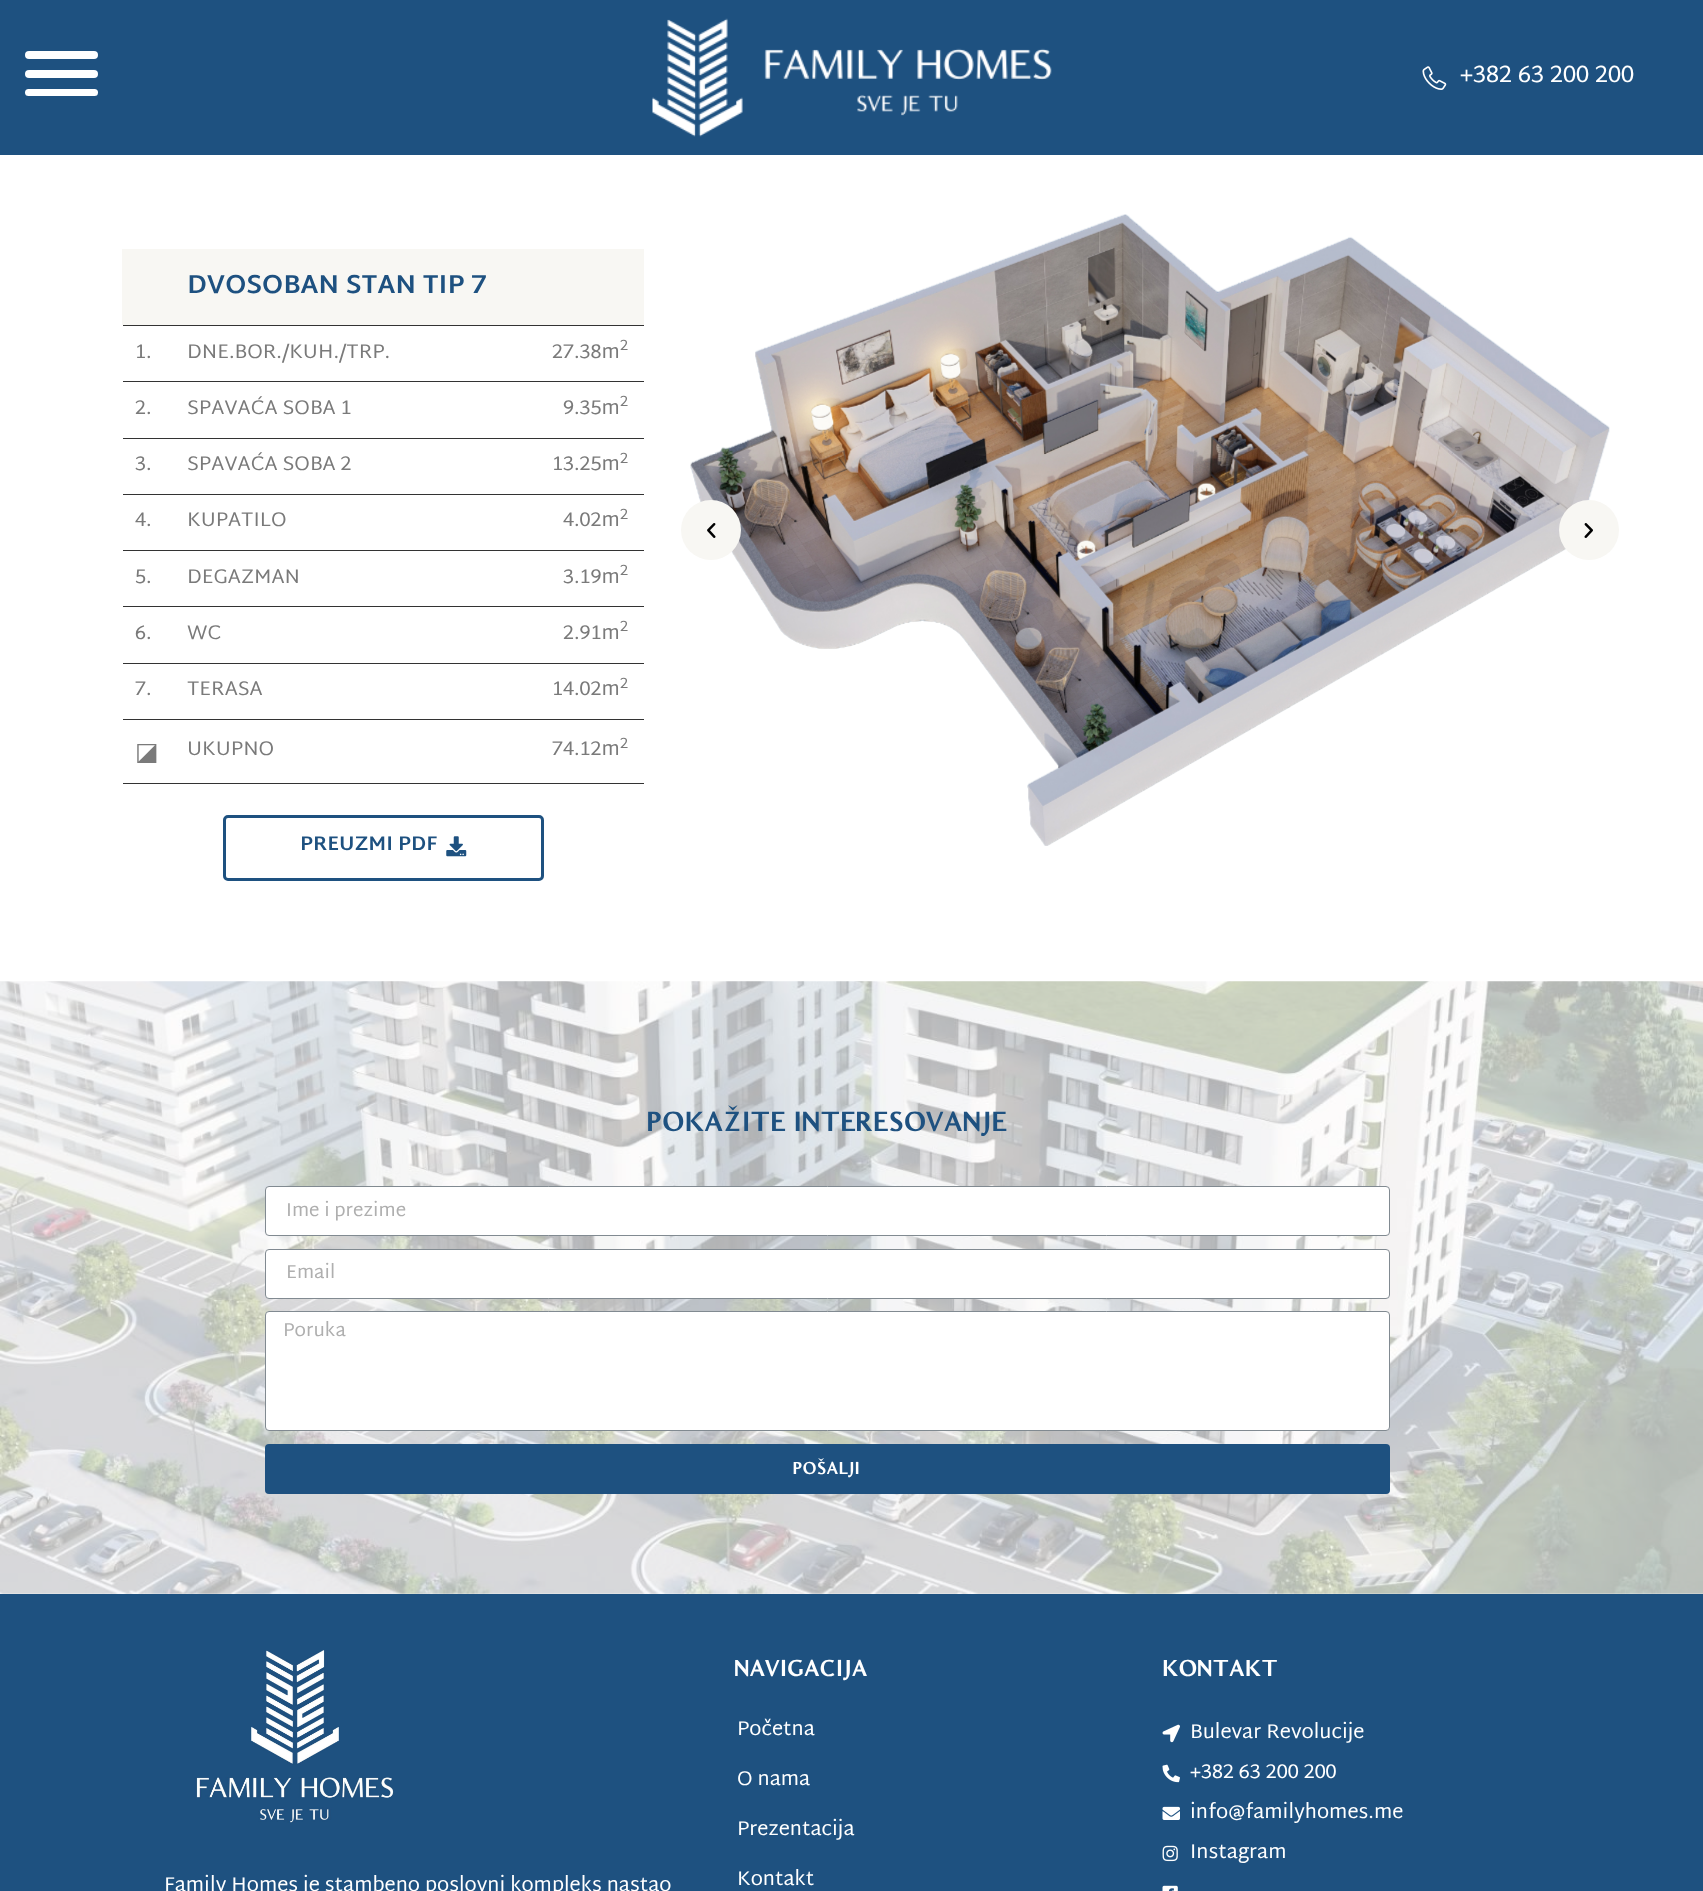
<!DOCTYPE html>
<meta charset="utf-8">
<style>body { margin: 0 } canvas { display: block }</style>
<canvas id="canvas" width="1703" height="1891"></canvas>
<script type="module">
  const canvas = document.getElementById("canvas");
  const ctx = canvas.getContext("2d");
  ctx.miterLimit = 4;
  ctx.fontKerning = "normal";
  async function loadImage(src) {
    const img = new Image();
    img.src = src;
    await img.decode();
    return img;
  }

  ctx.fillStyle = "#ffffff";
  ctx.fillRect(0, 0, 1703, 1891);
  ctx.fillStyle = "#1e5180";
  ctx.fillRect(0, 0, 1703, 155);
  ctx.fillStyle = "#ffffff";
  ctx.beginPath();
  ctx.roundRect(25, 70, 73, 8, 4);
  ctx.fill();
  ctx.beginPath();
  ctx.roundRect(25, 51, 73, 8, 4);
  ctx.fill();
  ctx.beginPath();
  ctx.roundRect(25, 89, 73, 7, 3.5);
  ctx.fill();
  ctx.drawImage(await loadImage("img1.png"), 652, 18, 400, 119);
  ctx.drawImage(await loadImage("img2.png"), 1422, 66, 25, 24);
  ctx.font = "23.75px Martel Sans";
  ctx.fillText("+382 63 200 200", 1460, 82);
  ctx.fillStyle = "#f8f7f3";
  ctx.fillRect(122, 249, 522, 76);
  ctx.fillStyle = "#333333";
  ctx.fillRect(123, 325, 521, 1);
  ctx.font = "bold 26.25px Martel Sans";
  ctx.fillStyle = "#1e5180";
  ctx.fillText("DVOSOBAN STAN TIP 7", 187, 293);
  ctx.fillStyle = "#333333";
  ctx.fillRect(123, 381, 521, 1);
  ctx.font = "20px Martel Sans";
  ctx.fillStyle = "#7a7a7a";
  ctx.fillText("1.", 135, 358);
  ctx.fillText("DNE.BOR./KUH./TRP.", 187, 358);
  ctx.fillText("27.38m", 552, 358);
  ctx.font = "15px Martel Sans";
  ctx.fillText("2", 620, 350);
  ctx.fillStyle = "#333333";
  ctx.fillRect(123, 438, 521, 1);
  ctx.font = "20px Martel Sans";
  ctx.fillStyle = "#7a7a7a";
  ctx.fillText("2.", 135, 414);
  ctx.fillText("SPAVAĆA SOBA 1", 187, 414);
  ctx.fillText("9.35m", 563, 414);
  ctx.font = "15px Martel Sans";
  ctx.fillText("2", 620, 406);
  ctx.fillStyle = "#333333";
  ctx.fillRect(123, 494, 521, 1);
  ctx.font = "20px Martel Sans";
  ctx.fillStyle = "#7a7a7a";
  ctx.fillText("3.", 135, 470);
  ctx.fillText("SPAVAĆA SOBA 2", 187, 470);
  ctx.fillText("13.25m", 552, 470);
  ctx.font = "15px Martel Sans";
  ctx.fillText("2", 620, 463);
  ctx.fillStyle = "#333333";
  ctx.fillRect(123, 550, 521, 1);
  ctx.font = "20px Martel Sans";
  ctx.fillStyle = "#7a7a7a";
  ctx.fillText("4.", 135, 526);
  ctx.fillText("KUPATILO", 187, 526);
  ctx.fillText("4.02m", 563, 526);
  ctx.font = "15px Martel Sans";
  ctx.fillText("2", 620, 519);
  ctx.fillStyle = "#333333";
  ctx.fillRect(123, 606, 521, 1);
  ctx.font = "20px Martel Sans";
  ctx.fillStyle = "#7a7a7a";
  ctx.fillText("5.", 135, 583);
  ctx.fillText("DEGAZMAN", 187, 583);
  ctx.fillText("3.19m", 563, 583);
  ctx.font = "15px Martel Sans";
  ctx.fillText("2", 620, 575);
  ctx.fillStyle = "#333333";
  ctx.fillRect(123, 663, 521, 1);
  ctx.font = "20px Martel Sans";
  ctx.fillStyle = "#7a7a7a";
  ctx.fillText("6.", 135, 639);
  ctx.fillText("WC", 187, 639);
  ctx.fillText("2.91m", 563, 639);
  ctx.font = "15px Martel Sans";
  ctx.fillText("2", 620, 631);
  ctx.fillStyle = "#333333";
  ctx.fillRect(123, 719, 521, 1);
  ctx.font = "20px Martel Sans";
  ctx.fillStyle = "#7a7a7a";
  ctx.fillText("7.", 135, 695);
  ctx.fillText("TERASA", 187, 695);
  ctx.fillText("14.02m", 552, 695);
  ctx.font = "15px Martel Sans";
  ctx.fillText("2", 620, 688);
  ctx.fillStyle = "#333333";
  ctx.fillRect(123, 783, 521, 1);
  ctx.font = "25px DejaVu Sans";
  ctx.fillStyle = "#7a7a7a";
  ctx.fillText("◪", 135, 760);
  ctx.font = "20px Martel Sans";
  ctx.fillText("UKUPNO", 187, 755);
  ctx.fillText("74.12m", 552, 755);
  ctx.font = "15px Martel Sans";
  ctx.fillText("2", 620, 748);
  ctx.beginPath();
  ctx.roundRect(224.5, 816.5, 318, 63, 3.5);
  ctx.strokeStyle = "#1e5180";
  ctx.lineWidth = 3;
  ctx.stroke();
  ctx.font = "bold 20px Martel Sans";
  ctx.fillStyle = "#1e5180";
  ctx.fillText("PREUZMI PDF", 300, 850);
  ctx.drawImage(await loadImage("img3.png"), 446, 836, 21, 21);
  ctx.drawImage(await loadImage("img4.png"), 690, 214, 920, 632);
  ctx.fillStyle = "#f8f7f3";
  ctx.beginPath();
  ctx.arc(711, 530, 30, 0, Math.PI * 2);
  ctx.fill();
  ctx.drawImage(await loadImage("img5.png"), 707, 523, 9, 15);
  ctx.beginPath();
  ctx.arc(1589, 530, 30, 0, Math.PI * 2);
  ctx.fill();
  ctx.drawImage(await loadImage("img6.png"), 1584, 523, 9, 15);
  ctx.drawImage(await loadImage("img7.png"), 0, 981, 1703, 613);
  ctx.font = "bold 30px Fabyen";
  ctx.fillStyle = "#1e5180";
  ctx.fillText("POKAŽITE INTERESOVANJE", 647, 1131);
  ctx.fillStyle = "#ffffff";
  ctx.beginPath();
  ctx.roundRect(265.5, 1186.5, 1124, 49, 3.5);
  ctx.fill();
  ctx.strokeStyle = "#818a91";
  ctx.lineWidth = 1;
  ctx.stroke();
  ctx.font = "18.75px Martel Sans";
  ctx.fillStyle = "#afafaf";
  ctx.fillText("Ime i prezime", 286, 1216);
  ctx.fillStyle = "#ffffff";
  ctx.beginPath();
  ctx.roundRect(265.5, 1249.5, 1124, 49, 3.5);
  ctx.fill();
  ctx.stroke();
  ctx.fillStyle = "#afafaf";
  ctx.fillText("Email", 286, 1278);
  ctx.fillStyle = "#ffffff";
  ctx.beginPath();
  ctx.roundRect(265.5, 1311.5, 1124, 119, 3.5);
  ctx.fill();
  ctx.stroke();
  ctx.fillStyle = "#afafaf";
  ctx.fillText("Poruka", 283, 1336);
  ctx.fillStyle = "#1e5180";
  ctx.beginPath();
  ctx.roundRect(265, 1444, 1125, 50, 4);
  ctx.fill();
  ctx.font = "bold 18.75px Fabyen";
  ctx.fillStyle = "#ffffff";
  ctx.fillText("POŠALJI", 793, 1474);
  ctx.fillStyle = "#1e5180";
  ctx.fillRect(0, 1594, 1703, 297);
  ctx.font = "bold 25px Fabyen";
  ctx.fillStyle = "#ffffff";
  ctx.fillText("NAVIGACIJA", 734, 1676);
  ctx.font = "20px Martel Sans";
  ctx.fillText("Početna", 737, 1735);
  ctx.fillText("O nama", 737, 1785);
  ctx.fillText("Prezentacija", 737, 1835);
  ctx.fillText("Kontakt", 737, 1885);
  ctx.font = "bold 25px Fabyen";
  ctx.fillText("KONTAKT", 1162, 1676);
  ctx.drawImage(await loadImage("img8.png"), 1162, 1724, 18, 19);
  ctx.font = "20px Martel Sans";
  ctx.fillText("Bulevar Revolucije", 1190, 1738);
  ctx.drawImage(await loadImage("img9.png"), 1162, 1764, 18, 19);
  ctx.fillText("+382 63 200 200", 1190, 1778);
  ctx.drawImage(await loadImage("img10.png"), 1162, 1806, 18, 14);
  ctx.fillText("info@familyhomes.me", 1190, 1818);
  ctx.drawImage(await loadImage("img11.png"), 1162, 1845, 16, 17);
  ctx.fillText("Instagram", 1190, 1858);
  ctx.drawImage(await loadImage("img12.png"), 1162, 1885, 16, 6);
  ctx.drawImage(await loadImage("img13.png"), 194, 1650, 200, 173);
  ctx.fillText("Family Homes je stambeno poslovni kompleks nastao", 164, 1891);
</script>
